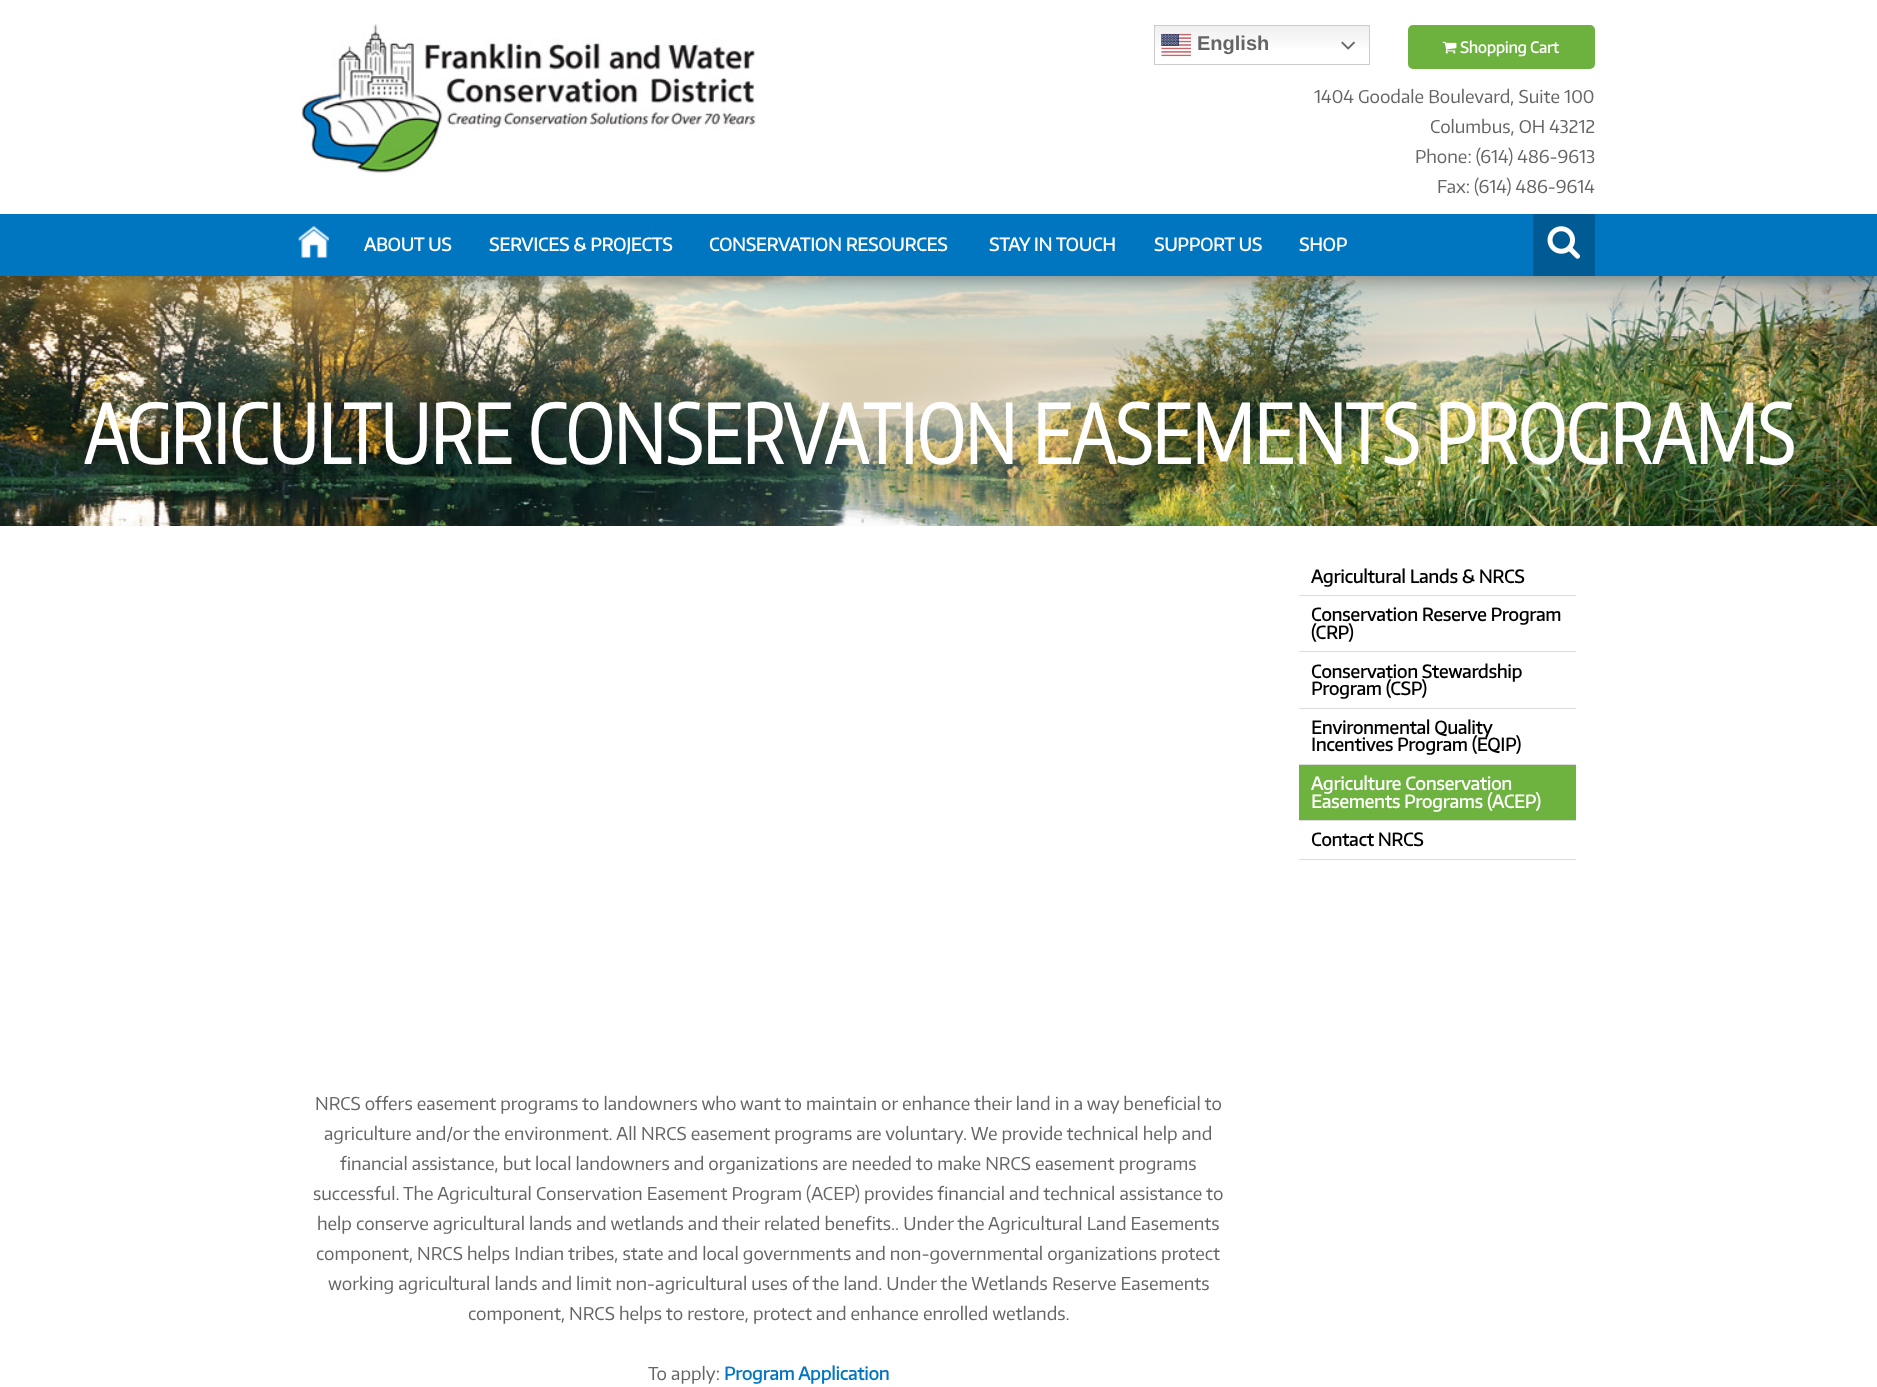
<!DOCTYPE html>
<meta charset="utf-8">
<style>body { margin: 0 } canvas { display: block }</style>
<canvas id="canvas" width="1877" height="1387"></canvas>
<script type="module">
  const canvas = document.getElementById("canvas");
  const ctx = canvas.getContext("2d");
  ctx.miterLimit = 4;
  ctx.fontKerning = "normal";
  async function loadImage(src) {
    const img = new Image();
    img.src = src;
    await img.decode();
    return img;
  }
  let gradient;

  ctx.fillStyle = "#ffffff";
  ctx.fillRect(0, 0, 1877, 1387);
  ctx.drawImage(await loadImage("img7.png"), 0, 276, 1877, 250);
  ctx.fillStyle = "rgba(0, 0, 0, 0.5)";
  ctx.filter = "blur(12.5px)";
  ctx.beginPath();
  ctx.rect(0, 214, 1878, 62);
  ctx.fill();
  ctx.filter = "none";
  ctx.fillStyle = "#ffffff";
  ctx.fillRect(0, 188, 1877, 26);
  ctx.drawImage(await loadImage("img1.png"), 301, 23, 455, 152);
  gradient = ctx.createLinearGradient(1262, 25, 1262, 65);
  gradient.addColorStop(0, "#efefef");
  gradient.addColorStop(0.7, "#ffffff");
  ctx.fillStyle = gradient;
  ctx.fillRect(1155, 26, 214, 23);
  ctx.strokeStyle = "#cccccc";
  ctx.strokeRect(1154.5, 25.5, 215, 39);
  ctx.drawImage(await loadImage("img2.png"), 1161, 33, 30, 24);
  ctx.font = "bold 20px Liberation Sans";
  ctx.fillStyle = "#656565";
  ctx.fillText("English", 1197, 50);
  ctx.drawImage(await loadImage("img3.png"), 1341, 41, 14, 9);
  ctx.fillStyle = "#6db23e";
  ctx.beginPath();
  ctx.roundRect(1408, 25, 187, 44, 5);
  ctx.fill();
  ctx.drawImage(await loadImage("img4.png"), 1442, 41, 15, 13);
  ctx.font = "bold 15px Encode Sans";
  ctx.fillStyle = "#ffffff";
  ctx.fillText("Shopping Cart", 1460, 53);
  ctx.font = "17.5px Encode Sans";
  ctx.fillStyle = "#656565";
  ctx.fillText("1404 Goodale Boulevard, Suite 100", 1314, 103);
  ctx.fillText("Columbus, OH 43212", 1430, 133);
  ctx.fillText("Phone: (614) 486-9613", 1415, 163);
  ctx.fillText("Fax: (614) 486-9614", 1437, 193);
  ctx.fillStyle = "#0076c0";
  ctx.fillRect(0, 214, 1877, 62);
  ctx.drawImage(await loadImage("img5.png"), 298, 226, 31, 32);
  ctx.font = "bold 17.5px Encode Sans";
  ctx.fillStyle = "#ffffff";
  ctx.fillText("ABOUT US", 364, 251);
  ctx.fillText("SERVICES & PROJECTS", 489, 251);
  ctx.fillText("CONSERVATION RESOURCES", 709, 251);
  ctx.fillText("STAY IN TOUCH", 989, 251);
  ctx.fillText("SUPPORT US", 1154, 251);
  ctx.fillText("SHOP", 1299, 251);
  ctx.fillStyle = "#005a93";
  ctx.fillRect(1533, 214, 62, 62);
  ctx.drawImage(await loadImage("img6.png"), 1547, 226, 33, 33);
  ctx.font = "bold 80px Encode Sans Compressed";
  ctx.fillStyle = "#ffffff";
  ctx.fillText("AGRICULTURE CONSERVATION EASEMENTS PROGRAMS", 84, 464);
  ctx.fillStyle = "#dcdcdc";
  ctx.fillRect(1299, 595, 277, 1);
  ctx.font = "bold 17.5px Encode Sans";
  ctx.fillStyle = "#000000";
  ctx.fillText("Agricultural Lands & NRCS", 1311, 583);
  ctx.fillStyle = "#dcdcdc";
  ctx.fillRect(1299, 651, 277, 1);
  ctx.fillStyle = "#000000";
  ctx.fillText("Conservation Reserve Program", 1311, 621);
  ctx.fillText("(CRP)", 1311, 639);
  ctx.fillStyle = "#dcdcdc";
  ctx.fillRect(1299, 708, 277, 1);
  ctx.fillStyle = "#000000";
  ctx.fillText("Conservation Stewardship", 1311, 678);
  ctx.fillText("Program (CSP)", 1311, 695);
  ctx.fillStyle = "#dcdcdc";
  ctx.fillRect(1299, 764, 277, 1);
  ctx.fillStyle = "#000000";
  ctx.fillText("Environmental Quality", 1311, 734);
  ctx.fillText("Incentives Program (EQIP)", 1311, 751);
  ctx.fillStyle = "#6eb33f";
  ctx.fillRect(1299, 765, 277, 55);
  ctx.fillStyle = "#dcdcdc";
  ctx.fillRect(1299, 820, 277, 1);
  ctx.fillStyle = "#ffffff";
  ctx.fillText("Agriculture Conservation", 1311, 790);
  ctx.fillText("Easements Programs (ACEP)", 1311, 808);
  ctx.fillStyle = "#dcdcdc";
  ctx.fillRect(1299, 859, 277, 1);
  ctx.fillStyle = "#000000";
  ctx.fillText("Contact NRCS", 1311, 846);
  ctx.font = "17.5px Encode Sans";
  ctx.fillStyle = "#656565";
  ctx.fillText("NRCS offers easement programs to landowners who want to maintain or enhance their land in a way beneficial to", 315, 1110);
  ctx.fillText("agriculture and/or the environment. All NRCS easement programs are voluntary. We provide technical help and", 324, 1140);
  ctx.fillText("financial assistance, but local landowners and organizations are needed to make NRCS easement programs", 340, 1170);
  ctx.fillText("successful.", 313, 1200);
  ctx.fillText("The Agricultural Conservation Easement Program (ACEP) provides financial and technical assistance to", 403, 1200);
  ctx.fillText("help conserve agricultural lands and wetlands and their related benefits.. Under the Agricultural Land Easements", 317, 1230);
  ctx.fillText("component, NRCS helps Indian tribes, state and local governments and non-governmental organizations protect", 316, 1260);
  ctx.fillText("working agricultural lands and limit non-agricultural uses of the land. Under the Wetlands Reserve Easements", 328, 1290);
  ctx.fillText("component, NRCS helps to restore, protect and enhance enrolled wetlands.", 468, 1320);
  ctx.fillText("To apply:", 648, 1380);
  ctx.font = "bold 17.5px Encode Sans";
  ctx.fillStyle = "#0076c0";
  ctx.fillText("Program Application", 724, 1380);
</script>
